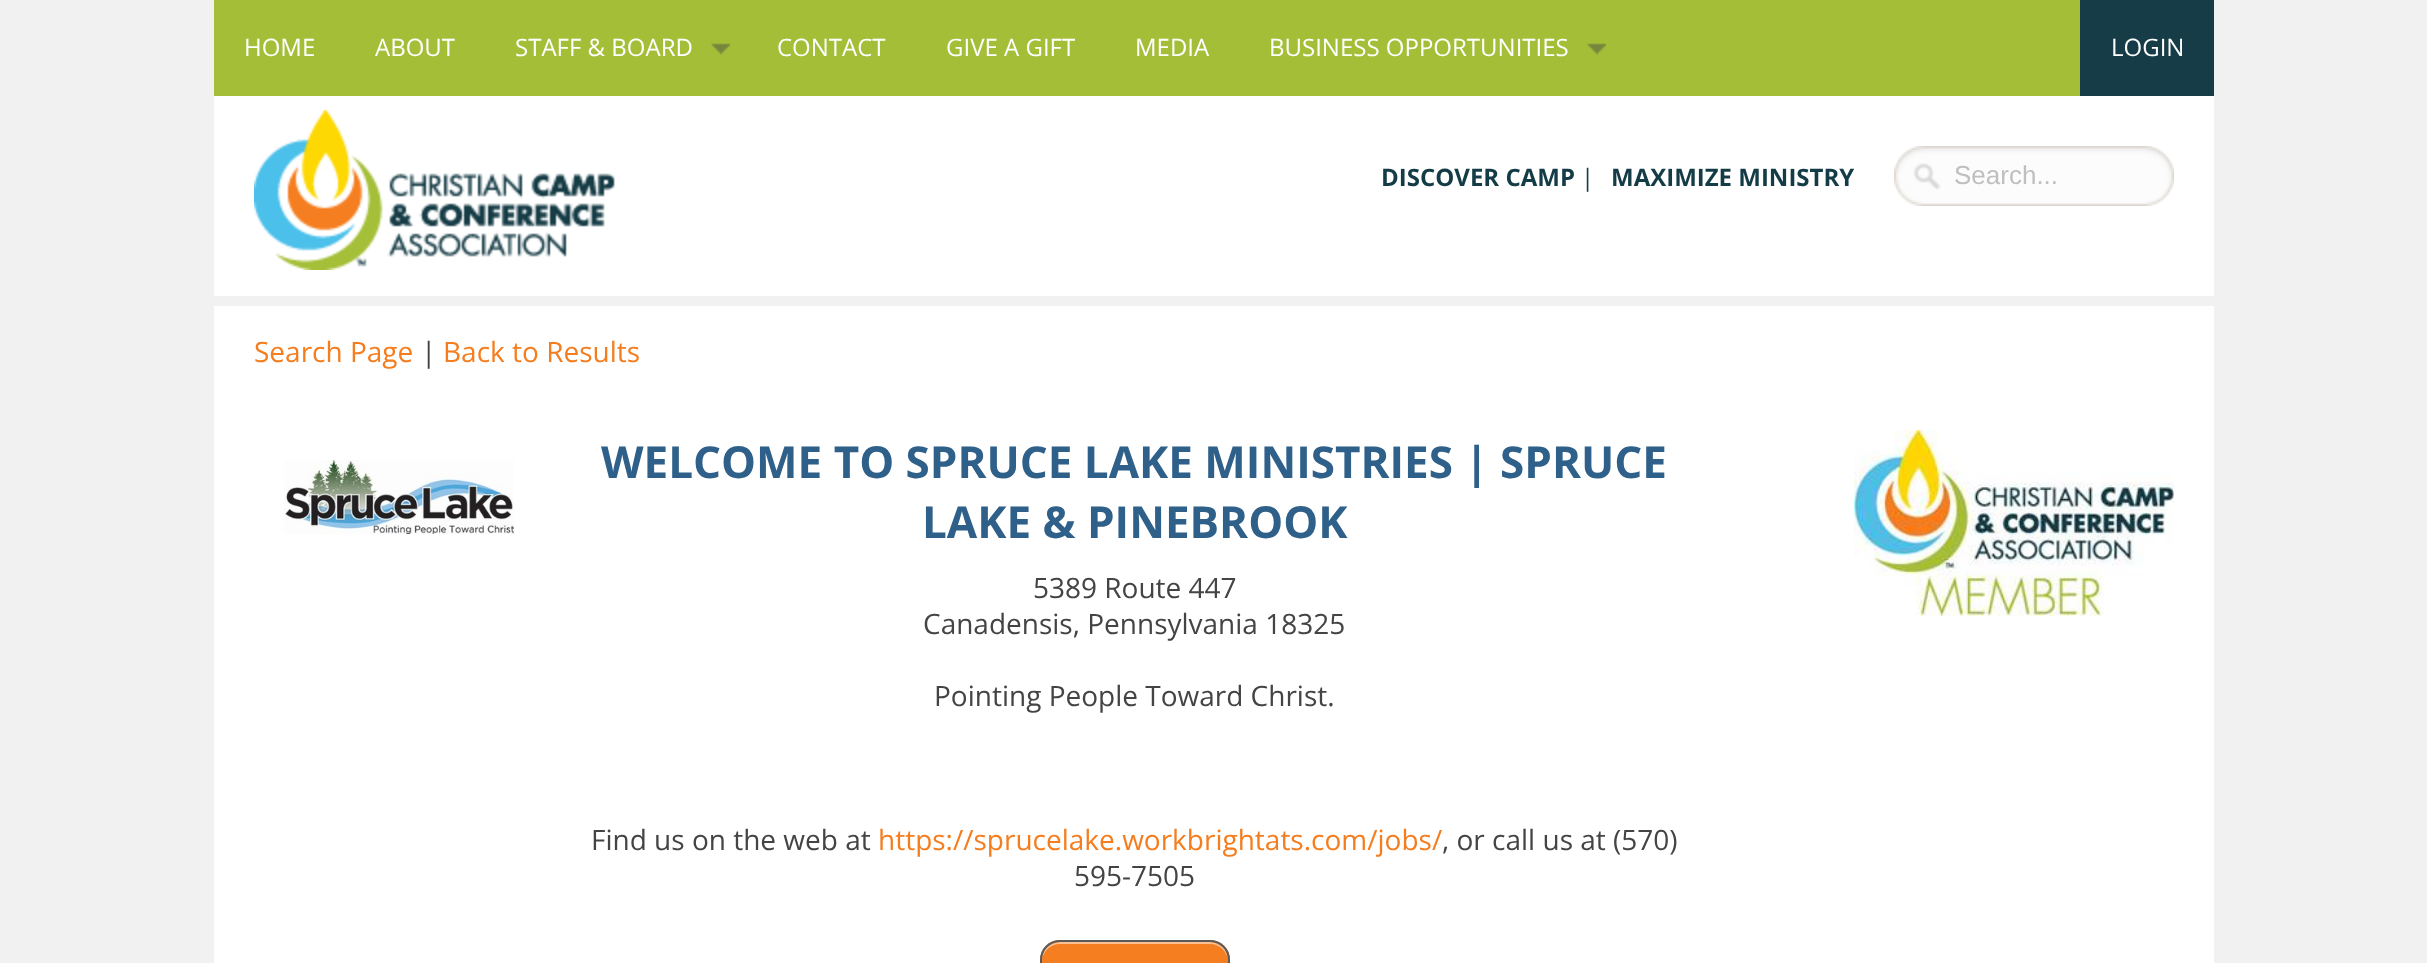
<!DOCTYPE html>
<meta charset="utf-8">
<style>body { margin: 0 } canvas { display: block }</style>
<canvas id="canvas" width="2427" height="963"></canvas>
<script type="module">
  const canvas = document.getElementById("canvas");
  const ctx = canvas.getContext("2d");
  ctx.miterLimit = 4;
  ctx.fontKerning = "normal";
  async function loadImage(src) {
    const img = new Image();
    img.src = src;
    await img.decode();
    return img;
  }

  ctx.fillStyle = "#f1f1f1";
  ctx.fillRect(0, 0, 2427, 963);
  ctx.fillStyle = "#a5be37";
  ctx.fillRect(214, 0, 1866, 96);
  ctx.font = "24px Open Sans";
  ctx.fillStyle = "#ffffff";
  ctx.fillText("HOME", 244, 56);
  ctx.fillText("ABOUT", 375, 56);
  ctx.fillText("STAFF & BOARD", 515, 56);
  ctx.drawImage(await loadImage("img1.png"), 711, 43, 19, 12);
  ctx.fillText("CONTACT", 777, 56);
  ctx.fillText("GIVE A GIFT", 946, 56);
  ctx.fillText("MEDIA", 1135, 56);
  ctx.fillText("BUSINESS OPPORTUNITIES", 1269, 56);
  ctx.drawImage(await loadImage("img1.png"), 1587, 43, 19, 12);
  ctx.fillStyle = "#163c47";
  ctx.fillRect(2080, 0, 134, 96);
  ctx.fillStyle = "#ffffff";
  ctx.fillText("LOGIN", 2111, 56);
  ctx.fillRect(214, 96, 2000, 200);
  ctx.drawImage(await loadImage("img2.png"), 254, 110, 361, 160);
  ctx.font = "bold 24px Open Sans";
  ctx.fillStyle = "#143c46";
  ctx.fillText("DISCOVER CAMP", 1381, 186);
  ctx.font = "24px Open Sans";
  ctx.fillText("|", 1581, 186);
  ctx.font = "bold 24px Open Sans";
  ctx.fillText("MAXIMIZE MINISTRY", 1611, 186);
  ctx.drawImage(await loadImage("img3.png"), 1894, 146, 280, 60);
  ctx.font = "26px Liberation Sans";
  ctx.fillStyle = "#bfbfbf";
  ctx.fillText("Search...", 1954, 184);
  ctx.fillStyle = "#ffffff";
  ctx.fillRect(214, 306, 2000, 657);
  ctx.font = "28px Open Sans";
  ctx.fillStyle = "#f57d1e";
  ctx.fillText("Search Page", 254, 362);
  ctx.fillStyle = "#444444";
  ctx.fillText("|", 421, 362);
  ctx.fillStyle = "#f57d1e";
  ctx.fillText("Back to Results", 443, 362);
  ctx.drawImage(await loadImage("img4.png"), 284, 460, 230, 74);
  ctx.font = "bold 44px Open Sans";
  ctx.fillStyle = "#2f608a";
  ctx.fillText("WELCOME TO SPRUCE LAKE MINISTRIES | SPRUCE", 601, 478);
  ctx.fillText("LAKE & PINEBROOK", 922, 538);
  ctx.font = "28px Open Sans";
  ctx.fillStyle = "#444444";
  ctx.fillText("5389 Route 447", 1033, 598);
  ctx.fillText("Canadensis, Pennsylvania 18325", 923, 634);
  ctx.fillText("Pointing People Toward Christ.", 934, 706);
  ctx.fillText("Find us on the web at", 591, 850);
  ctx.fillStyle = "#f57d1e";
  ctx.fillText("https://sprucelake.workbrightats.com/jobs/", 878, 850);
  ctx.fillStyle = "#444444";
  ctx.fillText(", or call us at (570)", 1442, 850);
  ctx.fillText("595-7505", 1074, 886);
  ctx.fillStyle = "#f57e20";
  ctx.beginPath();
  ctx.roundRect(1040, 940, 190, 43, 20);
  ctx.fill();
  ctx.fillStyle = "#fabf90";
  ctx.beginPath();
  ctx.moveTo(1060, 944);
  ctx.lineTo(1210, 944);
  ctx.bezierCurveTo(1220, 944, 1228, 952, 1228, 962);
  ctx.bezierCurveTo(1228, 937, 1203, 942, 1185, 942);
  ctx.lineTo(1085, 942);
  ctx.bezierCurveTo(1067, 942, 1042, 937, 1042, 962);
  ctx.bezierCurveTo(1042, 952, 1050, 944, 1060, 944);
  ctx.closePath();
  ctx.fill();
  ctx.beginPath();
  ctx.roundRect(1041, 941, 188, 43, 19);
  ctx.strokeStyle = "#5b5b5b";
  ctx.lineWidth = 2;
  ctx.stroke();
  ctx.drawImage(await loadImage("img5.png"), 1854, 430, 320, 186);
</script>
